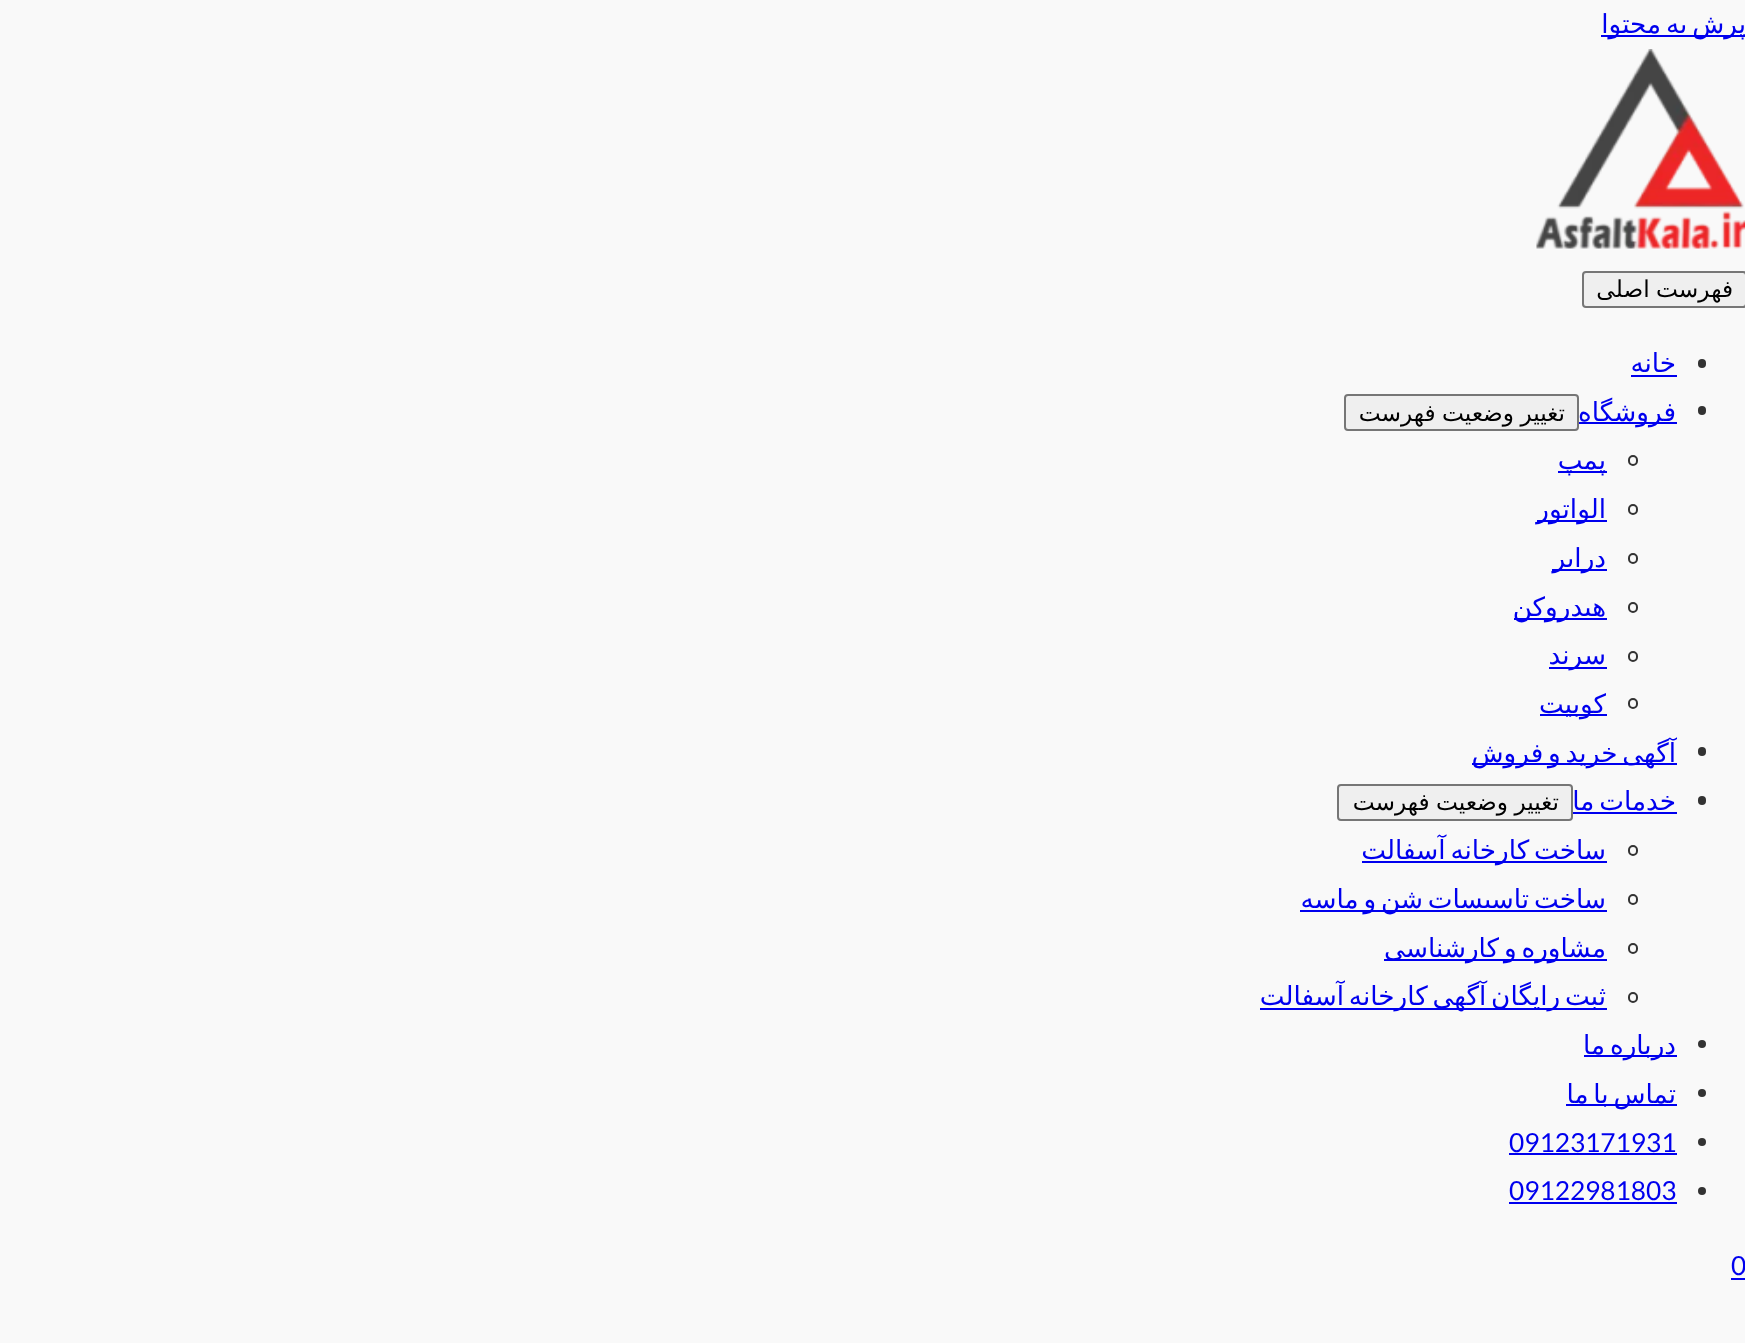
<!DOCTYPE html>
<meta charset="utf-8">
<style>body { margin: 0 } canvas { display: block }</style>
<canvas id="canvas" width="1745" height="1343"></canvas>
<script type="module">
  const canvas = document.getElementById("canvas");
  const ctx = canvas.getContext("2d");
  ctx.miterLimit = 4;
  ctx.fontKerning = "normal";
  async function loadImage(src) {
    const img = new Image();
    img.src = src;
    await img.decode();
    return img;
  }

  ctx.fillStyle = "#f9f9f9";
  ctx.fillRect(0, 0, 1745, 1343);
  ctx.fillStyle = "#0000ee";
  ctx.fillRect(1601, 35, 144, 2);
  ctx.wordSpacing = "-3.5px";
  ctx.direction = "rtl";
  ctx.font = "26.25px DejaVu Sans";
  ctx.fillText("پرش به محتوا", 1746, 33);
  ctx.drawImage(await loadImage("img1.png"), 1536, 49, 209, 200);
  ctx.fillStyle = "#efefef";
  ctx.beginPath();
  ctx.roundRect(1583, 272, 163, 35, 3);
  ctx.fill();
  ctx.strokeStyle = "#767676";
  ctx.lineWidth = 2;
  ctx.stroke();
  ctx.wordSpacing = "-1px";
  ctx.font = "23.25px DejaVu Sans";
  ctx.fillStyle = "#000000";
  ctx.fillText("فهرست اصلی", 1733, 297);
  ctx.fillStyle = "#333333";
  ctx.beginPath();
  ctx.roundRect(1698, 359, 8, 9, 4);
  ctx.fill();
  ctx.wordSpacing = "0px";
  ctx.font = "26.25px DejaVu Sans";
  ctx.fillStyle = "#0000ee";
  ctx.fillText("خانه", 1676, 372);
  ctx.fillRect(1631, 375, 46, 2);
  ctx.fillStyle = "#333333";
  ctx.beginPath();
  ctx.roundRect(1698, 406, 8, 9, 4);
  ctx.fill();
  ctx.fillStyle = "#0000ee";
  ctx.fillRect(1579, 422, 98, 2);
  ctx.fillText("فروشگاه", 1676, 421);
  ctx.fillStyle = "#efefef";
  ctx.beginPath();
  ctx.roundRect(1345, 395, 233, 35, 3);
  ctx.fill();
  ctx.stroke();
  ctx.wordSpacing = "-1px";
  ctx.font = "23.25px DejaVu Sans";
  ctx.fillStyle = "#000000";
  ctx.fillText("تغییر وضعیت فهرست", 1565, 421);
  ctx.beginPath();
  ctx.roundRect(1629, 456, 8, 9, 4);
  ctx.strokeStyle = "#333333";
  ctx.stroke();
  ctx.fillStyle = "#0000ee";
  ctx.fillRect(1558, 471, 49, 2);
  ctx.wordSpacing = "0px";
  ctx.font = "26.25px DejaVu Sans";
  ctx.fillText("پمپ", 1606, 469);
  ctx.beginPath();
  ctx.roundRect(1629, 505, 8, 9, 4);
  ctx.stroke();
  ctx.fillRect(1537, 520, 70, 2);
  ctx.fillText("الواتور", 1606, 518);
  ctx.beginPath();
  ctx.roundRect(1629, 554, 8, 9, 4);
  ctx.stroke();
  ctx.fillRect(1552, 569, 55, 2);
  ctx.fillText("درایر", 1606, 567);
  ctx.beginPath();
  ctx.roundRect(1629, 603, 8, 9, 4);
  ctx.stroke();
  ctx.fillRect(1514, 618, 93, 2);
  ctx.fillText("هیدروکن", 1606, 616);
  ctx.beginPath();
  ctx.roundRect(1629, 652, 8, 9, 4);
  ctx.stroke();
  ctx.fillRect(1549, 667, 58, 2);
  ctx.fillText("سرند", 1606, 664);
  ctx.beginPath();
  ctx.roundRect(1629, 699, 8, 9, 4);
  ctx.stroke();
  ctx.fillRect(1540, 714, 67, 2);
  ctx.fillText("کوبیت", 1606, 713);
  ctx.fillStyle = "#333333";
  ctx.beginPath();
  ctx.roundRect(1698, 747, 8, 9, 4);
  ctx.fill();
  ctx.fillStyle = "#0000ee";
  ctx.fillRect(1472, 763, 205, 2);
  ctx.wordSpacing = "-3.5px";
  ctx.fillText("آگهی خرید و فروش", 1676, 762);
  ctx.fillStyle = "#333333";
  ctx.beginPath();
  ctx.roundRect(1698, 796, 8, 9, 4);
  ctx.fill();
  ctx.fillStyle = "#0000ee";
  ctx.fillText("خدمات ما", 1676, 810);
  ctx.fillRect(1573, 812, 104, 2);
  ctx.fillStyle = "#efefef";
  ctx.beginPath();
  ctx.roundRect(1338, 785, 234, 35, 3);
  ctx.fill();
  ctx.strokeStyle = "#767676";
  ctx.stroke();
  ctx.wordSpacing = "-1px";
  ctx.font = "23.25px DejaVu Sans";
  ctx.fillStyle = "#000000";
  ctx.fillText("تغییر وضعیت فهرست", 1559, 810);
  ctx.beginPath();
  ctx.roundRect(1629, 846, 8, 9, 4);
  ctx.strokeStyle = "#333333";
  ctx.stroke();
  ctx.fillStyle = "#0000ee";
  ctx.fillRect(1362, 861, 245, 2);
  ctx.wordSpacing = "-3.5px";
  ctx.font = "26.25px DejaVu Sans";
  ctx.fillText("ساخت کارخانه آسفالت", 1606, 859);
  ctx.beginPath();
  ctx.roundRect(1629, 895, 8, 9, 4);
  ctx.stroke();
  ctx.fillRect(1300, 910, 307, 2);
  ctx.fillText("ساخت تاسیسات شن و ماسه", 1606, 908);
  ctx.beginPath();
  ctx.roundRect(1629, 944, 8, 9, 4);
  ctx.stroke();
  ctx.fillRect(1384, 959, 223, 2);
  ctx.fillText("مشاوره و کارشناسی", 1606, 957);
  ctx.beginPath();
  ctx.roundRect(1629, 993, 8, 9, 4);
  ctx.stroke();
  ctx.fillRect(1260, 1008, 347, 2);
  ctx.fillText("ثبت رایگان آگهی کارخانه آسفالت", 1606, 1005);
  ctx.fillStyle = "#333333";
  ctx.beginPath();
  ctx.arc(1702, 1044, 4, 0, Math.PI * 2);
  ctx.fill();
  ctx.fillStyle = "#0000ee";
  ctx.fillRect(1584, 1055, 93, 2);
  ctx.fillText("درباره ما", 1676, 1054);
  ctx.fillStyle = "#333333";
  ctx.beginPath();
  ctx.arc(1702, 1093, 4, 0, Math.PI * 2);
  ctx.fill();
  ctx.fillStyle = "#0000ee";
  ctx.fillRect(1566, 1104, 111, 2);
  ctx.fillText("تماس با ما", 1676, 1103);
  ctx.fillStyle = "#333333";
  ctx.beginPath();
  ctx.arc(1702, 1142, 4, 0, Math.PI * 2);
  ctx.fill();
  ctx.wordSpacing = "0px";
  ctx.direction = "ltr";
  ctx.font = "26.25px Lato";
  ctx.fillStyle = "#0000ee";
  ctx.fillText("09123171931", 1509, 1152);
  ctx.fillRect(1509, 1153, 168, 2);
  ctx.fillStyle = "#333333";
  ctx.beginPath();
  ctx.arc(1702, 1191, 4, 0, Math.PI * 2);
  ctx.fill();
  ctx.fillStyle = "#0000ee";
  ctx.fillText("09122981803", 1509, 1200);
  ctx.fillRect(1509, 1202, 168, 2);
  ctx.fillText("0", 1731, 1275);
  ctx.fillRect(1731, 1278, 14, 2);
</script>
